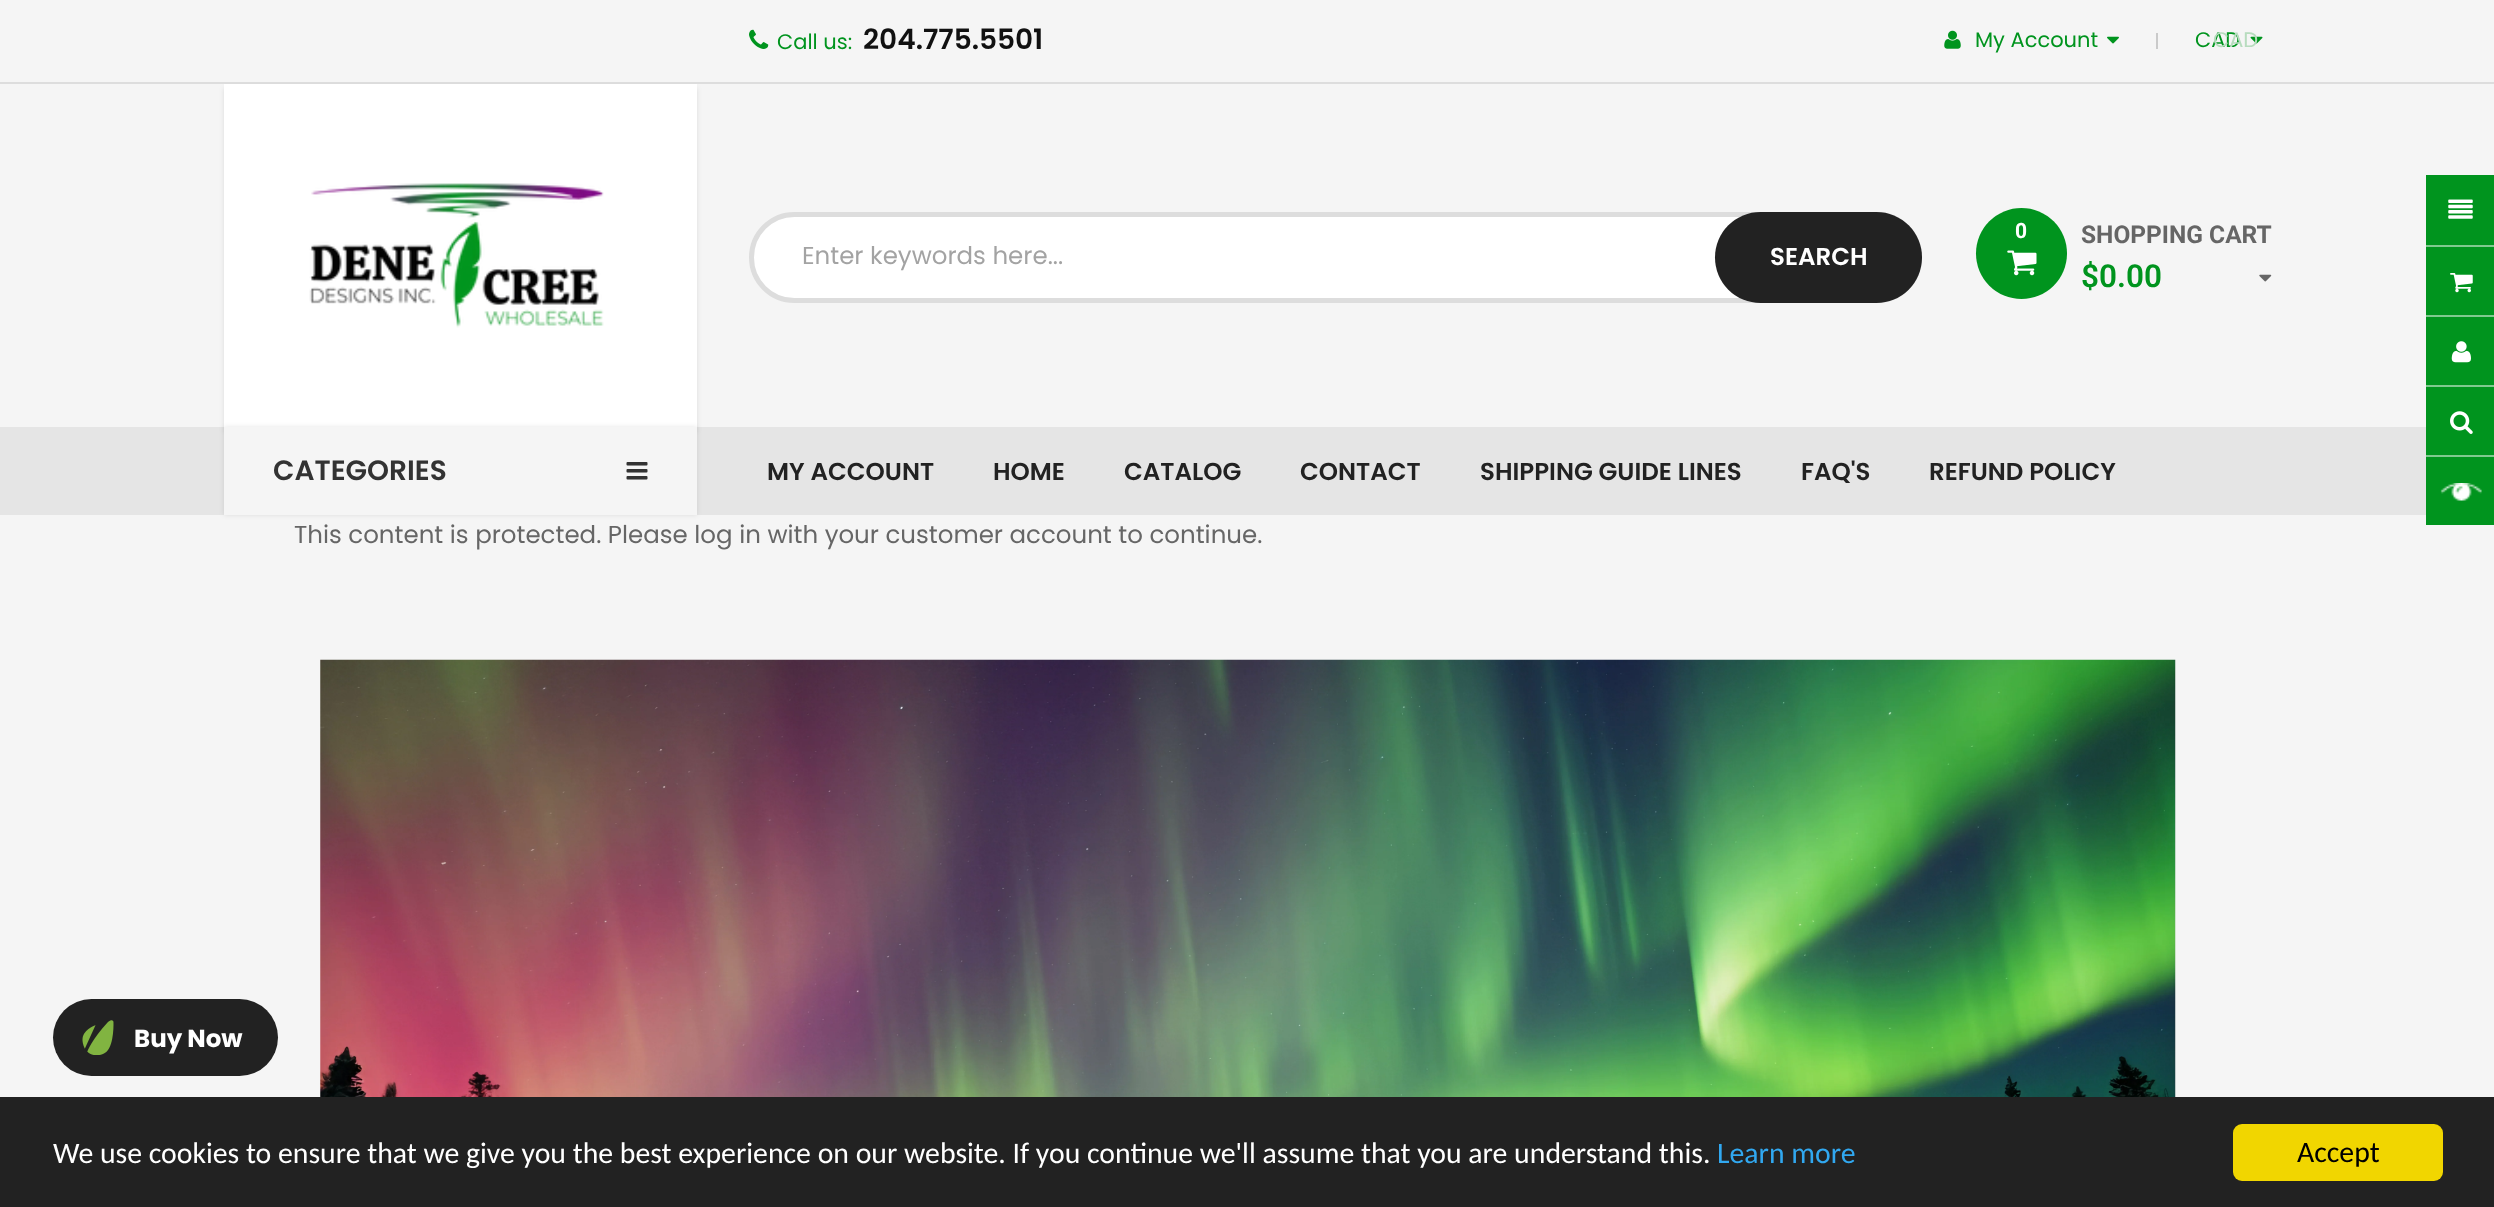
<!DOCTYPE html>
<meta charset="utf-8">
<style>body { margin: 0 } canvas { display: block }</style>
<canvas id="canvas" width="2494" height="1207"></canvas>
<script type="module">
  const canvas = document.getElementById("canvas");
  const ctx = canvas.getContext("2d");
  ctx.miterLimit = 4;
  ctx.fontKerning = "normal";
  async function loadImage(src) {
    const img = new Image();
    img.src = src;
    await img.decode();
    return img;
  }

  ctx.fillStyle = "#f5f5f5";
  ctx.fillRect(0, 0, 2494, 1207);
  ctx.fillStyle = "#dddddd";
  ctx.fillRect(0, 82, 2494, 2);
  ctx.drawImage(await loadImage("img1.png"), 749, 29, 20, 20);
  ctx.font = "21px Poppins";
  ctx.fillStyle = "#00941e";
  ctx.fillText("Call us:", 777, 49);
  ctx.font = "600 28px Poppins";
  ctx.fillStyle = "#111111";
  ctx.fillText("204.775.5501", 863, 49);
  ctx.drawImage(await loadImage("img2.png"), 1944, 30, 17, 19);
  ctx.font = "21px Poppins";
  ctx.fillStyle = "#00941e";
  ctx.fillText("My Account", 1975, 47);
  ctx.drawImage(await loadImage("img3.png"), 2107, 36, 12, 8);
  ctx.fillStyle = "#cacaca";
  ctx.fillRect(2156, 33, 2, 16);
  ctx.fillStyle = "#00941e";
  ctx.fillText("CAD", 2195, 47);
  ctx.drawImage(await loadImage("img4.png"), 2250, 36, 13, 8);
  ctx.fillStyle = "#b7dcbe";
  ctx.fillText("CAD", 2213, 47);
  ctx.fillStyle = "#e5e5e5";
  ctx.fillRect(0, 427, 2426, 88);
  ctx.fillStyle = "rgba(0, 0, 0, 0.1)";
  ctx.filter = "blur(2.5px)";
  ctx.beginPath();
  ctx.rect(224, 88, 473, 343);
  ctx.fill();
  ctx.filter = "none";
  ctx.fillStyle = "#ffffff";
  ctx.fillRect(224, 84, 473, 343);
  ctx.drawImage(await loadImage("img5.png"), 309, 183, 295, 145);
  ctx.beginPath();
  ctx.roundRect(751.5, 214.5, 1168, 86, 43);
  ctx.fill();
  ctx.strokeStyle = "#dddddd";
  ctx.lineWidth = 5;
  ctx.stroke();
  ctx.font = "24.5px Poppins";
  ctx.fillStyle = "#a3a3a3";
  ctx.fillText("Enter keywords here...", 802, 264);
  ctx.fillStyle = "#222222";
  ctx.beginPath();
  ctx.roundRect(1715, 212, 207, 91, 45.5);
  ctx.fill();
  ctx.font = "600 24.5px Poppins";
  ctx.fillStyle = "#ffffff";
  ctx.fillText("SEARCH", 1770, 265);
  ctx.fillStyle = "#00941e";
  ctx.beginPath();
  ctx.arc(2021.5, 253.5, 45.5, 0, Math.PI * 2);
  ctx.fill();
  ctx.font = "bold 21px Roboto";
  ctx.fillStyle = "#ffffff";
  ctx.fillText("0", 2015, 238);
  ctx.drawImage(await loadImage("img6.png"), 2007, 250, 30, 26);
  ctx.font = "bold 24.5px Roboto";
  ctx.fillStyle = "#666666";
  ctx.fillText("SHOPPING CART", 2081, 243);
  ctx.font = "600 31.5px Roboto";
  ctx.fillStyle = "#00941e";
  ctx.fillText("$0.00", 2081, 287);
  ctx.drawImage(await loadImage("img7.png"), 2259, 274, 13, 8);
  ctx.fillStyle = "rgba(0, 0, 0, 0.1)";
  ctx.filter = "blur(2.5px)";
  ctx.beginPath();
  ctx.rect(224, 427, 473, 88);
  ctx.fill();
  ctx.filter = "none";
  ctx.fillStyle = "#f5f5f5";
  ctx.fillRect(224, 427, 473, 88);
  ctx.font = "600 28px Poppins";
  ctx.fillStyle = "#333333";
  ctx.fillText("CATEGORIES", 273, 480);
  ctx.drawImage(await loadImage("img8.png"), 626, 462, 22, 18);
  ctx.font = "600 24.5px Poppins";
  ctx.fillStyle = "#222222";
  ctx.fillText("MY ACCOUNT", 767, 480);
  ctx.fillText("HOME", 993, 480);
  ctx.fillText("CATALOG", 1124, 480);
  ctx.fillText("CONTACT", 1300, 480);
  ctx.fillText("SHIPPING GUIDE LINES", 1480, 480);
  ctx.fillText("FAQ'S", 1801, 480);
  ctx.fillText("REFUND POLICY", 1929, 480);
  ctx.fillStyle = "#00941e";
  ctx.fillRect(2426, 175, 68, 70);
  ctx.drawImage(await loadImage("img9.png"), 2448, 199, 25, 20);
  ctx.fillRect(2426, 247, 68, 68);
  ctx.fillStyle = "#80ca8f";
  ctx.fillRect(2426, 245, 68, 2);
  ctx.drawImage(await loadImage("img10.png"), 2450, 273, 23, 20);
  ctx.fillStyle = "#00941e";
  ctx.fillRect(2426, 317, 68, 68);
  ctx.fillStyle = "#80ca8f";
  ctx.fillRect(2426, 315, 68, 2);
  ctx.drawImage(await loadImage("img11.png"), 2451, 341, 20, 22);
  ctx.fillStyle = "#00941e";
  ctx.fillRect(2426, 387, 68, 68);
  ctx.fillStyle = "#80ca8f";
  ctx.fillRect(2426, 385, 68, 2);
  ctx.drawImage(await loadImage("img12.png"), 2450, 411, 23, 23);
  ctx.fillStyle = "#00941e";
  ctx.fillRect(2426, 457, 68, 68);
  ctx.fillStyle = "#80ca8f";
  ctx.fillRect(2426, 455, 68, 2);
  ctx.drawImage(await loadImage("img13.png"), 2440, 483, 42, 18);
  ctx.font = "24.5px Poppins";
  ctx.fillStyle = "#666666";
  ctx.fillText("This content is protected. Please log in with your customer account to continue.", 294, 543);
  ctx.drawImage(await loadImage("img14.png"), 320, 659, 1856, 438);
  ctx.fillStyle = "#222222";
  ctx.beginPath();
  ctx.roundRect(53, 999, 225, 77, 38.5);
  ctx.fill();
  ctx.drawImage(await loadImage("img15.png"), 82, 1020, 32, 35);
  ctx.font = "bold 24.5px Poppins";
  ctx.fillStyle = "#ffffff";
  ctx.fillText("Buy Now", 134, 1047);
  ctx.fillStyle = "#222222";
  ctx.fillRect(0, 1097, 2494, 110);
  ctx.font = "29.75px Carlito";
  ctx.fillStyle = "#ffffff";
  ctx.fillText("We use cookies to ensure that we give you the best experience on our website. If you continue we'll assume that you are understand this.", 53, 1163);
  ctx.fillStyle = "#31a8f0";
  ctx.fillText("Learn more", 1717, 1163);
  ctx.fillStyle = "#f1d600";
  ctx.beginPath();
  ctx.roundRect(2233, 1124, 210, 57, 9);
  ctx.fill();
  ctx.fillStyle = "#000000";
  ctx.fillText("Accept", 2297, 1162);
</script>
